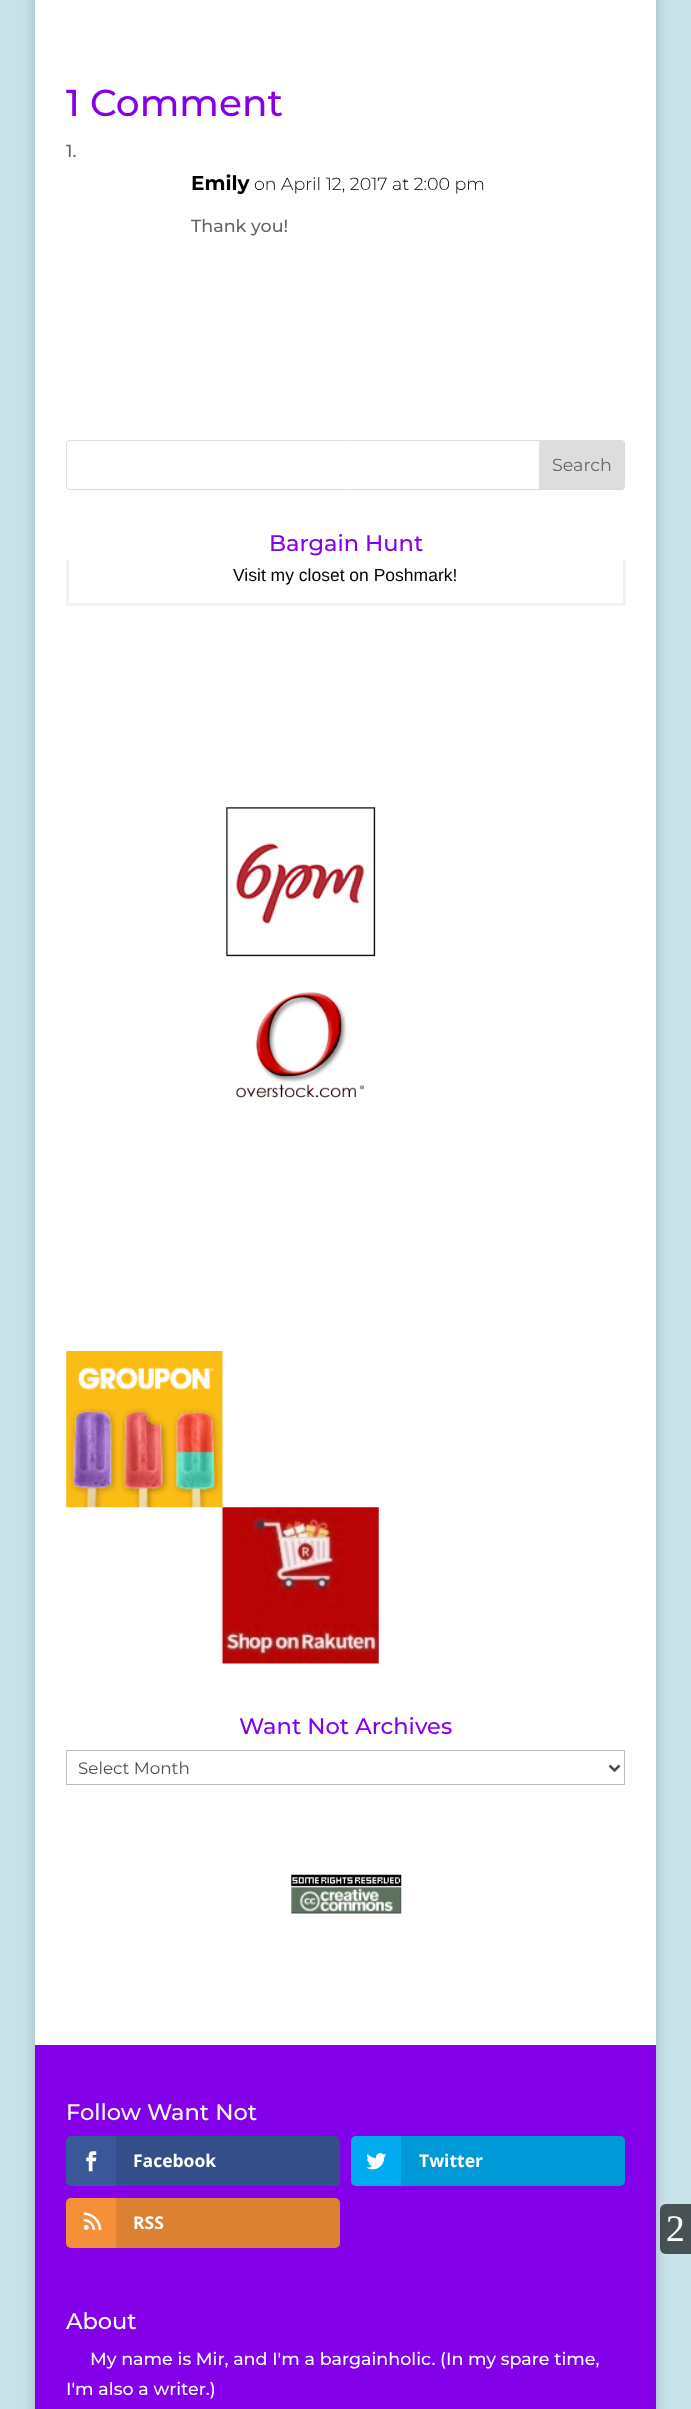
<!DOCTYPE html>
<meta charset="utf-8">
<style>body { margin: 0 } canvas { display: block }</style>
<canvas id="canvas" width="691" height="2409"></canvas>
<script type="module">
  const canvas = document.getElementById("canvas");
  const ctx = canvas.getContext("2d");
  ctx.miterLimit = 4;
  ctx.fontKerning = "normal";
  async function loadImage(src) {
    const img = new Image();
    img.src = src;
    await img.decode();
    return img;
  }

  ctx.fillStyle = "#c8e2ea";
  ctx.fillRect(0, 0, 691, 2409);
  ctx.fillStyle = "rgba(0, 0, 0, 0.2)";
  ctx.filter = "blur(6px)";
  ctx.beginPath();
  ctx.rect(35, -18, 621, 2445);
  ctx.fill();
  ctx.filter = "none";
  ctx.fillStyle = "#ffffff";
  ctx.fillRect(35, 0, 621, 2045);
  ctx.font = "100 37.5px Montserrat";
  ctx.fillStyle = "#8300e9";
  ctx.fillText("1 Comment", 66, 116);
  ctx.font = "100 17.5px Montserrat";
  ctx.fillStyle = "#666666";
  ctx.fillText("1.", 66, 157);
  ctx.font = "100 20px 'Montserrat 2'";
  ctx.fillStyle = "#000000";
  ctx.fillText("Emily", 191, 190);
  ctx.font = "100 17.5px 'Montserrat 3'";
  ctx.fillText("on April 12, 2017 at 2:00 pm", 254, 190);
  ctx.font = "100 17.5px Montserrat";
  ctx.fillStyle = "#666666";
  ctx.fillText("Thank you!", 191, 232);
  ctx.beginPath();
  ctx.roundRect(66.5, 440.5, 558, 49, 3.5);
  ctx.strokeStyle = "#dddddd";
  ctx.stroke();
  ctx.fillStyle = "#dddddd";
  ctx.beginPath();
  ctx.roundRect(539.5, 440.5, 85, 49, [0, 3.5, 3.5, 0]);
  ctx.fill();
  ctx.stroke();
  ctx.font = "100 17.5px 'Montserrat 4'";
  ctx.fillStyle = "#666666";
  ctx.fillText("Search", 552, 471);
  ctx.font = "100 22.5px Montserrat";
  ctx.fillStyle = "#8300e9";
  ctx.fillText("Bargain Hunt", 269, 551);
  ctx.fillStyle = "#f5f2ee";
  ctx.fillRect(623, 560, 3, 45);
  ctx.fillRect(66, 603, 559, 3);
  ctx.fillRect(66, 560, 3, 45);
  ctx.font = "17.5px Liberation Sans";
  ctx.fillStyle = "#000000";
  ctx.fillText("Visit my closet on Poshmark!", 233, 581);
  ctx.drawImage(await loadImage("img1.png"), 226, 807, 150, 150);
  ctx.drawImage(await loadImage("img2.png"), 235, 992, 129, 106);
  ctx.drawImage(await loadImage("img3.png"), 66, 1351, 157, 157);
  ctx.drawImage(await loadImage("img4.png"), 222, 1507, 157, 157);
  ctx.font = "100 22.5px Montserrat";
  ctx.fillStyle = "#8300e9";
  ctx.fillText("Want Not Archives", 239, 1734);
  ctx.strokeStyle = "#bbbbbb";
  ctx.strokeRect(66.5, 1750.5, 558, 34);
  ctx.beginPath();
  ctx.moveTo(609.5, 1765.5);
  ctx.lineTo(614.5, 1770.5);
  ctx.lineTo(619.5, 1765.5);
  ctx.strokeStyle = "#4e4e4e";
  ctx.lineWidth = 2.5;
  ctx.stroke();
  ctx.font = "100 16.75px 'Montserrat 4'";
  ctx.fillStyle = "#4e4e4e";
  ctx.fillText("Select Month", 78, 1774);
  ctx.drawImage(await loadImage("img5.png"), 291, 1874, 111, 40);
  ctx.fillStyle = "#8300e9";
  ctx.fillRect(35, 2045, 621, 364);
  ctx.font = "100 22.5px Montserrat";
  ctx.fillStyle = "#ffffff";
  ctx.fillText("Follow Want Not", 66, 2120);
  ctx.fillStyle = "#3a579a";
  ctx.beginPath();
  ctx.roundRect(66, 2136, 274, 50, 5);
  ctx.fill();
  ctx.drawImage(await loadImage("img6.png"), 86, 2151, 11, 21);
  ctx.fillStyle = "rgba(0, 0, 0, 0.1)";
  ctx.beginPath();
  ctx.roundRect(116, 2136, 224, 50, [0, 5, 5, 0]);
  ctx.fill();
  ctx.font = "bold 17.5px Open Sans";
  ctx.fillStyle = "#ffffff";
  ctx.fillText("Facebook", 133, 2167);
  ctx.fillStyle = "#00abf0";
  ctx.beginPath();
  ctx.roundRect(351, 2136, 274, 50, 5);
  ctx.fill();
  ctx.drawImage(await loadImage("img7.png"), 366, 2153, 21, 17);
  ctx.fillStyle = "rgba(0, 0, 0, 0.1)";
  ctx.beginPath();
  ctx.roundRect(401, 2136, 224, 50, [0, 5, 5, 0]);
  ctx.fill();
  ctx.fillStyle = "#ffffff";
  ctx.fillText("Twitter", 419, 2167);
  ctx.fillStyle = "#f59038";
  ctx.beginPath();
  ctx.roundRect(66, 2198, 274, 50, 5);
  ctx.fill();
  ctx.drawImage(await loadImage("img8.png"), 83, 2212, 19, 18);
  ctx.fillStyle = "rgba(0, 0, 0, 0.1)";
  ctx.beginPath();
  ctx.roundRect(116, 2198, 224, 50, [0, 5, 5, 0]);
  ctx.fill();
  ctx.fillStyle = "#ffffff";
  ctx.fillText("RSS", 133, 2229);
  ctx.font = "100 22.5px Montserrat";
  ctx.fillText("About", 66, 2329);
  ctx.font = "100 17.5px Montserrat";
  ctx.fillText("My name is Mir, and I'm a bargainholic. (In my spare time,", 90, 2365);
  ctx.fillText("I'm also a writer.)", 66, 2395);
  ctx.fillStyle = "rgba(0, 0, 0, 0.4)";
  ctx.beginPath();
  ctx.roundRect(660, 2204, 31, 50, [6, 0, 0, 6]);
  ctx.fill();
  ctx.font = "37.5px Liberation Serif";
  ctx.fillStyle = "#ffffff";
  ctx.fillText("2", 666, 2241);
  ctx.fillStyle = "rgba(0, 0, 0, 0.4)";
  ctx.beginPath();
  ctx.roundRect(660, 2204, 31, 50, [6, 0, 0, 6]);
  ctx.fill();
  ctx.fillStyle = "#ffffff";
  ctx.fillText("2", 666, 2241);
</script>
